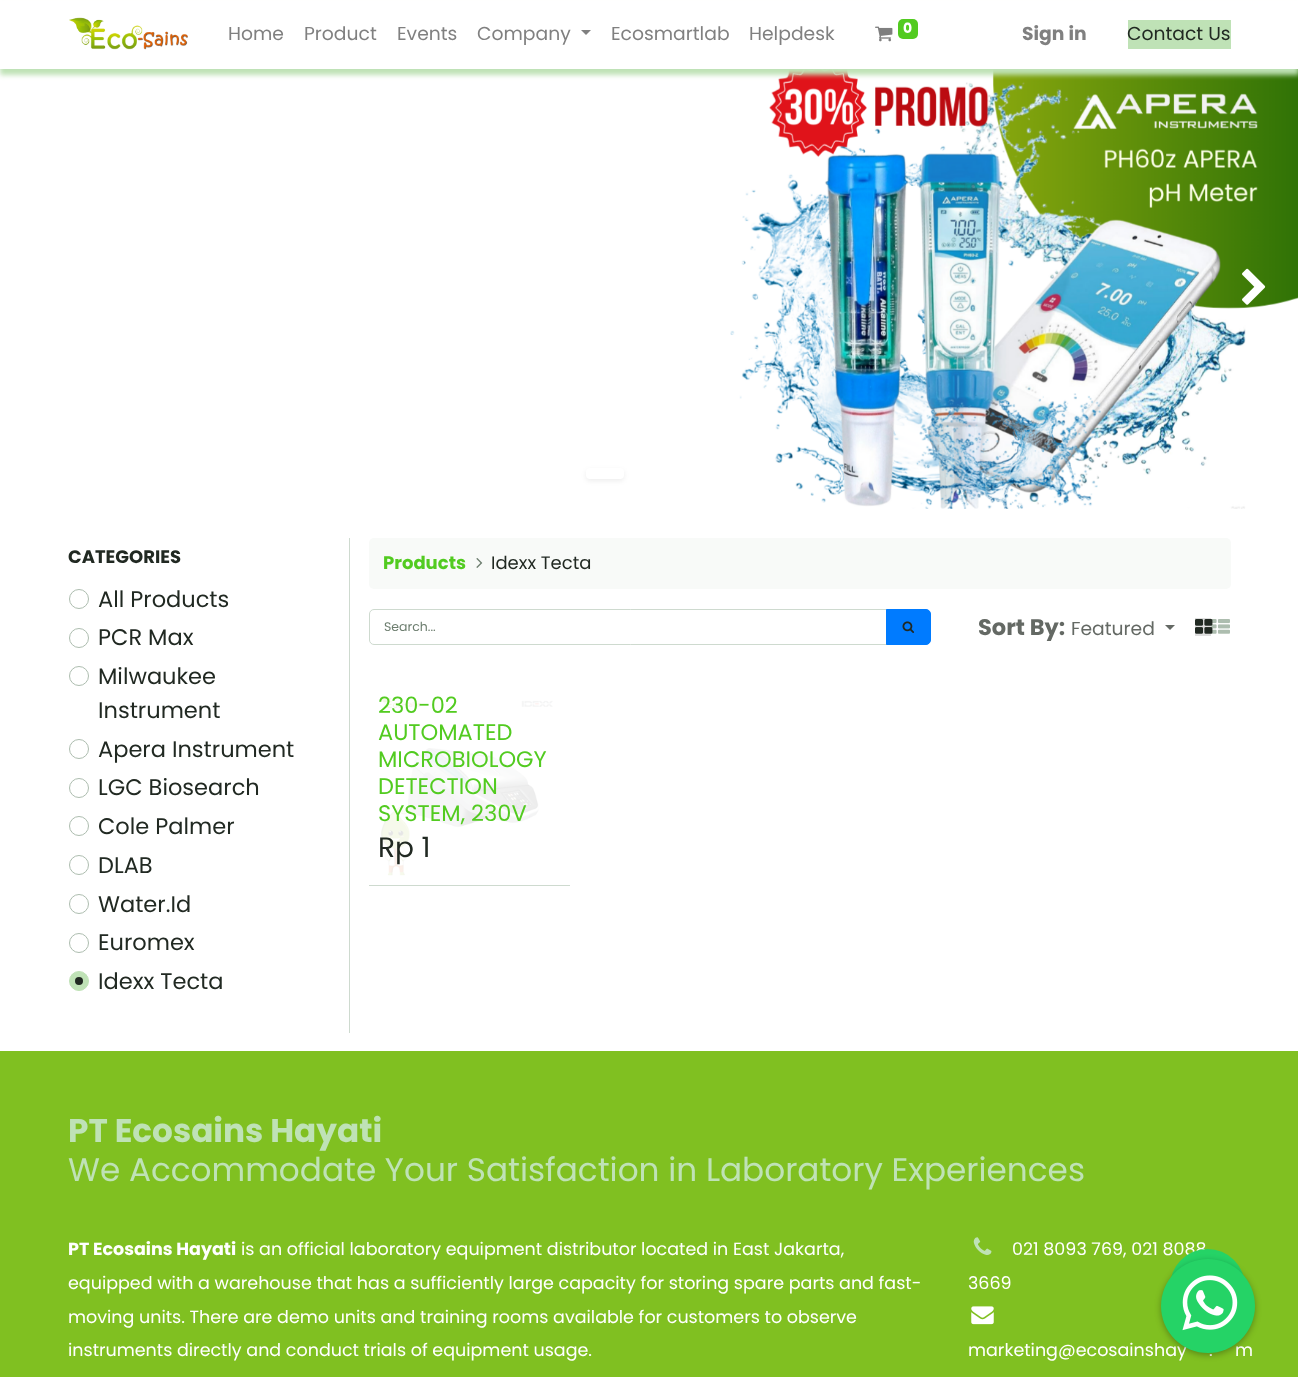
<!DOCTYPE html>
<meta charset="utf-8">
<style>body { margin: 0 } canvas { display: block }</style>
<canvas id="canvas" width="1298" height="1377"></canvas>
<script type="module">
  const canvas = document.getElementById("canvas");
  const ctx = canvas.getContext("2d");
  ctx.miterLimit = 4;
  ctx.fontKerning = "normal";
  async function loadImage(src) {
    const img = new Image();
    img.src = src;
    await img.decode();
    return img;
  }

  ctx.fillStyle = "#ffffff";
  ctx.fillRect(0, 0, 1298, 1377);
  ctx.drawImage(await loadImage("img3.png"), 730, 69, 568, 440);
  ctx.fillStyle = "#bfe2b6";
  ctx.filter = "blur(2.5px)";
  ctx.beginPath();
  ctx.rect(0, 6, 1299, 69);
  ctx.fill();
  ctx.filter = "none";
  ctx.fillStyle = "#ffffff";
  ctx.fillRect(0, 1, 1298, 68);
  ctx.drawImage(await loadImage("img1.png"), 69, 17, 119, 33);
  ctx.font = "18.75px Poppins";
  ctx.fillStyle = "#808080";
  ctx.fillText("Home", 228, 40);
  ctx.fillText("Product", 304, 40);
  ctx.fillText("Events", 397, 40);
  ctx.fillText("Company", 477, 40);
  ctx.beginPath();
  ctx.moveTo(581, 30);
  ctx.lineTo(591, 30);
  ctx.lineTo(586, 35);
  ctx.closePath();
  ctx.fill();
  ctx.fillText("Ecosmartlab", 611, 40);
  ctx.fillText("Helpdesk", 749, 40);
  ctx.drawImage(await loadImage("img2.png"), 875, 26, 18, 16);
  ctx.fillStyle = "#52cb20";
  ctx.beginPath();
  ctx.roundRect(898, 19, 20, 20, 5);
  ctx.fill();
  ctx.font = "bold 14px Poppins";
  ctx.fillStyle = "#ffffff";
  ctx.fillText("0", 903, 33);
  ctx.font = "bold 18.75px Poppins";
  ctx.fillStyle = "#808080";
  ctx.fillText("Sign in", 1022, 40);
  ctx.fillStyle = "#bfe2b6";
  ctx.fillRect(1128, 20, 103, 29);
  ctx.font = "18.75px Poppins";
  ctx.fillStyle = "#212922";
  ctx.fillText("Contact Us", 1127, 40);
  ctx.drawImage(await loadImage("img4.png"), 1242, 268, 24, 37);
  ctx.fillStyle = "rgba(0, 0, 0, 0.07)";
  ctx.filter = "blur(2.5px)";
  ctx.beginPath();
  ctx.roundRect(586, 470, 38, 11, 4);
  ctx.fill();
  ctx.filter = "none";
  ctx.fillStyle = "#ffffff";
  ctx.beginPath();
  ctx.roundRect(586, 468, 38, 11, 4);
  ctx.fill();
  ctx.fillStyle = "#cedacf";
  ctx.fillRect(349, 538, 1, 495);
  ctx.font = "bold 18px Poppins";
  ctx.fillStyle = "#212922";
  ctx.fillText("CATEGORIES", 68, 563);
  ctx.beginPath();
  ctx.arc(79, 599, 9.5, 0, Math.PI * 2);
  ctx.strokeStyle = "#adbdaf";
  ctx.stroke();
  ctx.font = "22.5px Poppins";
  ctx.fillText("All Products", 98, 607);
  ctx.beginPath();
  ctx.arc(79, 638, 9.5, 0, Math.PI * 2);
  ctx.stroke();
  ctx.fillText("PCR Max", 98, 645);
  ctx.beginPath();
  ctx.arc(79, 676, 9.5, 0, Math.PI * 2);
  ctx.stroke();
  ctx.fillText("Milwaukee", 98, 684);
  ctx.fillText("Instrument", 98, 718);
  ctx.beginPath();
  ctx.arc(79, 749, 9.5, 0, Math.PI * 2);
  ctx.stroke();
  ctx.fillText("Apera Instrument", 98, 757);
  ctx.beginPath();
  ctx.arc(79, 788, 9.5, 0, Math.PI * 2);
  ctx.stroke();
  ctx.fillText("LGC Biosearch", 98, 795);
  ctx.beginPath();
  ctx.arc(79, 826, 9.5, 0, Math.PI * 2);
  ctx.stroke();
  ctx.fillText("Cole Palmer", 98, 834);
  ctx.beginPath();
  ctx.arc(79, 865, 9.5, 0, Math.PI * 2);
  ctx.stroke();
  ctx.fillText("DLAB", 98, 873);
  ctx.beginPath();
  ctx.arc(79, 904, 9.5, 0, Math.PI * 2);
  ctx.stroke();
  ctx.fillText("Water.Id", 98, 912);
  ctx.beginPath();
  ctx.arc(79, 943, 9.5, 0, Math.PI * 2);
  ctx.stroke();
  ctx.fillText("Euromex", 98, 950);
  ctx.fillStyle = "#bfe2b6";
  ctx.beginPath();
  ctx.arc(79, 981, 9.5, 0, Math.PI * 2);
  ctx.fill();
  ctx.strokeStyle = "#bfe2b6";
  ctx.stroke();
  ctx.fillStyle = "#212922";
  ctx.fillText("Idexx Tecta", 98, 989);
  ctx.beginPath();
  ctx.arc(79, 981, 4, 0, Math.PI * 2);
  ctx.fill();
  ctx.fillStyle = "#f8faf8";
  ctx.beginPath();
  ctx.roundRect(369, 538, 862, 51, 5);
  ctx.fill();
  ctx.font = "bold 18px Poppins";
  ctx.fillStyle = "#52cb20";
  ctx.fillText("Products", 383, 569);
  ctx.drawImage(await loadImage("img5.png"), 476, 558, 7, 10);
  ctx.font = "18px Poppins";
  ctx.fillStyle = "#212922";
  ctx.fillText("Idexx Tecta", 491, 569);
  ctx.beginPath();
  ctx.roundRect(369.5, 609.5, 518, 35, [4.5, 0, 0, 4.5]);
  ctx.strokeStyle = "#cedacf";
  ctx.stroke();
  ctx.font = "12.5px Poppins";
  ctx.fillStyle = "#6c7d6e";
  ctx.fillText("Search...", 384, 631);
  ctx.fillStyle = "#007bff";
  ctx.beginPath();
  ctx.roundRect(886.5, 609.5, 44, 35, [0, 4.5, 4.5, 0]);
  ctx.fill();
  ctx.strokeStyle = "#007bff";
  ctx.stroke();
  ctx.drawImage(await loadImage("img6.png"), 902, 621, 13, 12);
  ctx.font = "bold 22.5px Poppins";
  ctx.fillStyle = "#646964";
  ctx.fillText("Sort By:", 978, 635);
  ctx.font = "18.75px Poppins";
  ctx.fillText("Featured", 1071, 635);
  ctx.beginPath();
  ctx.moveTo(1165, 625);
  ctx.lineTo(1175, 625);
  ctx.lineTo(1170, 630);
  ctx.closePath();
  ctx.fill();
  ctx.fillStyle = "#dedede";
  ctx.fillRect(1195, 618, 16, 18);
  ctx.drawImage(await loadImage("img8.png"), 1211, 619, 19, 15);
  ctx.drawImage(await loadImage("img7.png"), 1195, 619, 18, 15);
  ctx.fillStyle = "#cedacf";
  ctx.fillRect(369, 885, 201, 1);
  ctx.drawImage(await loadImage("img9.png"), 379, 696, 174, 180);
  ctx.font = "22.5px Poppins";
  ctx.fillStyle = "#52cb20";
  ctx.fillText("230-02", 378, 713);
  ctx.fillText("AUTOMATED", 378, 740);
  ctx.fillText("MICROBIOLOGY", 378, 767);
  ctx.fillText("DETECTION", 378, 794);
  ctx.fillText("SYSTEM, 230V", 378, 821);
  ctx.font = "28px Poppins";
  ctx.fillStyle = "#212922";
  ctx.fillText("Rp 1", 378, 857);
  ctx.fillStyle = "#80c021";
  ctx.fillRect(0, 1051, 1298, 326);
  ctx.font = "bold 32.7px Poppins";
  ctx.fillStyle = "#bfe2b6";
  ctx.fillText("PT Ecosains Hayati", 68, 1142);
  ctx.font = "32.7px Poppins";
  ctx.fillText("We Accommodate Your Satisfaction in Laboratory Experiences", 68, 1181);
  ctx.font = "bold 17.5px Poppins";
  ctx.fillStyle = "#ffffff";
  ctx.fillText("PT Ecosains Hayati", 68, 1255);
  ctx.font = "17.5px Poppins";
  ctx.fillText("is an official laboratory equipment distributor located in East Jakarta,", 241, 1255);
  ctx.fillText("equipped with a warehouse that has a sufficiently large capacity for storing spare parts and fast-", 68, 1289);
  ctx.fillText("moving units. There are demo units and training rooms available for customers to observe", 68, 1323);
  ctx.fillText("instruments directly and conduct trials of equipment usage.", 68, 1356);
  ctx.drawImage(await loadImage("img10.png"), 973, 1237, 19, 18);
  ctx.fillText("021 8093 769, 021 8088", 1012, 1255);
  ctx.fillText("3669", 968, 1289);
  ctx.drawImage(await loadImage("img11.png"), 971, 1306, 23, 19);
  ctx.fillText("marketing@ecosainshay", 968, 1356);
  ctx.fillText(".", 1209, 1356);
  ctx.fillText("m", 1235, 1356);
  ctx.fillStyle = "#25d366";
  ctx.beginPath();
  ctx.arc(1207.5, 1286.5, 37.5, 0, Math.PI * 2);
  ctx.fill();
  ctx.fillStyle = "rgba(0, 0, 0, 0.3)";
  ctx.filter = "blur(3px)";
  ctx.beginPath();
  ctx.roundRect(1161, 1261, 94, 94, 47);
  ctx.fill();
  ctx.filter = "none";
  ctx.fillStyle = "#25d366";
  ctx.beginPath();
  ctx.arc(1208, 1306, 47, 0, Math.PI * 2);
  ctx.fill();
  ctx.drawImage(await loadImage("img12.png"), 1182, 1275, 56, 56);
</script>
